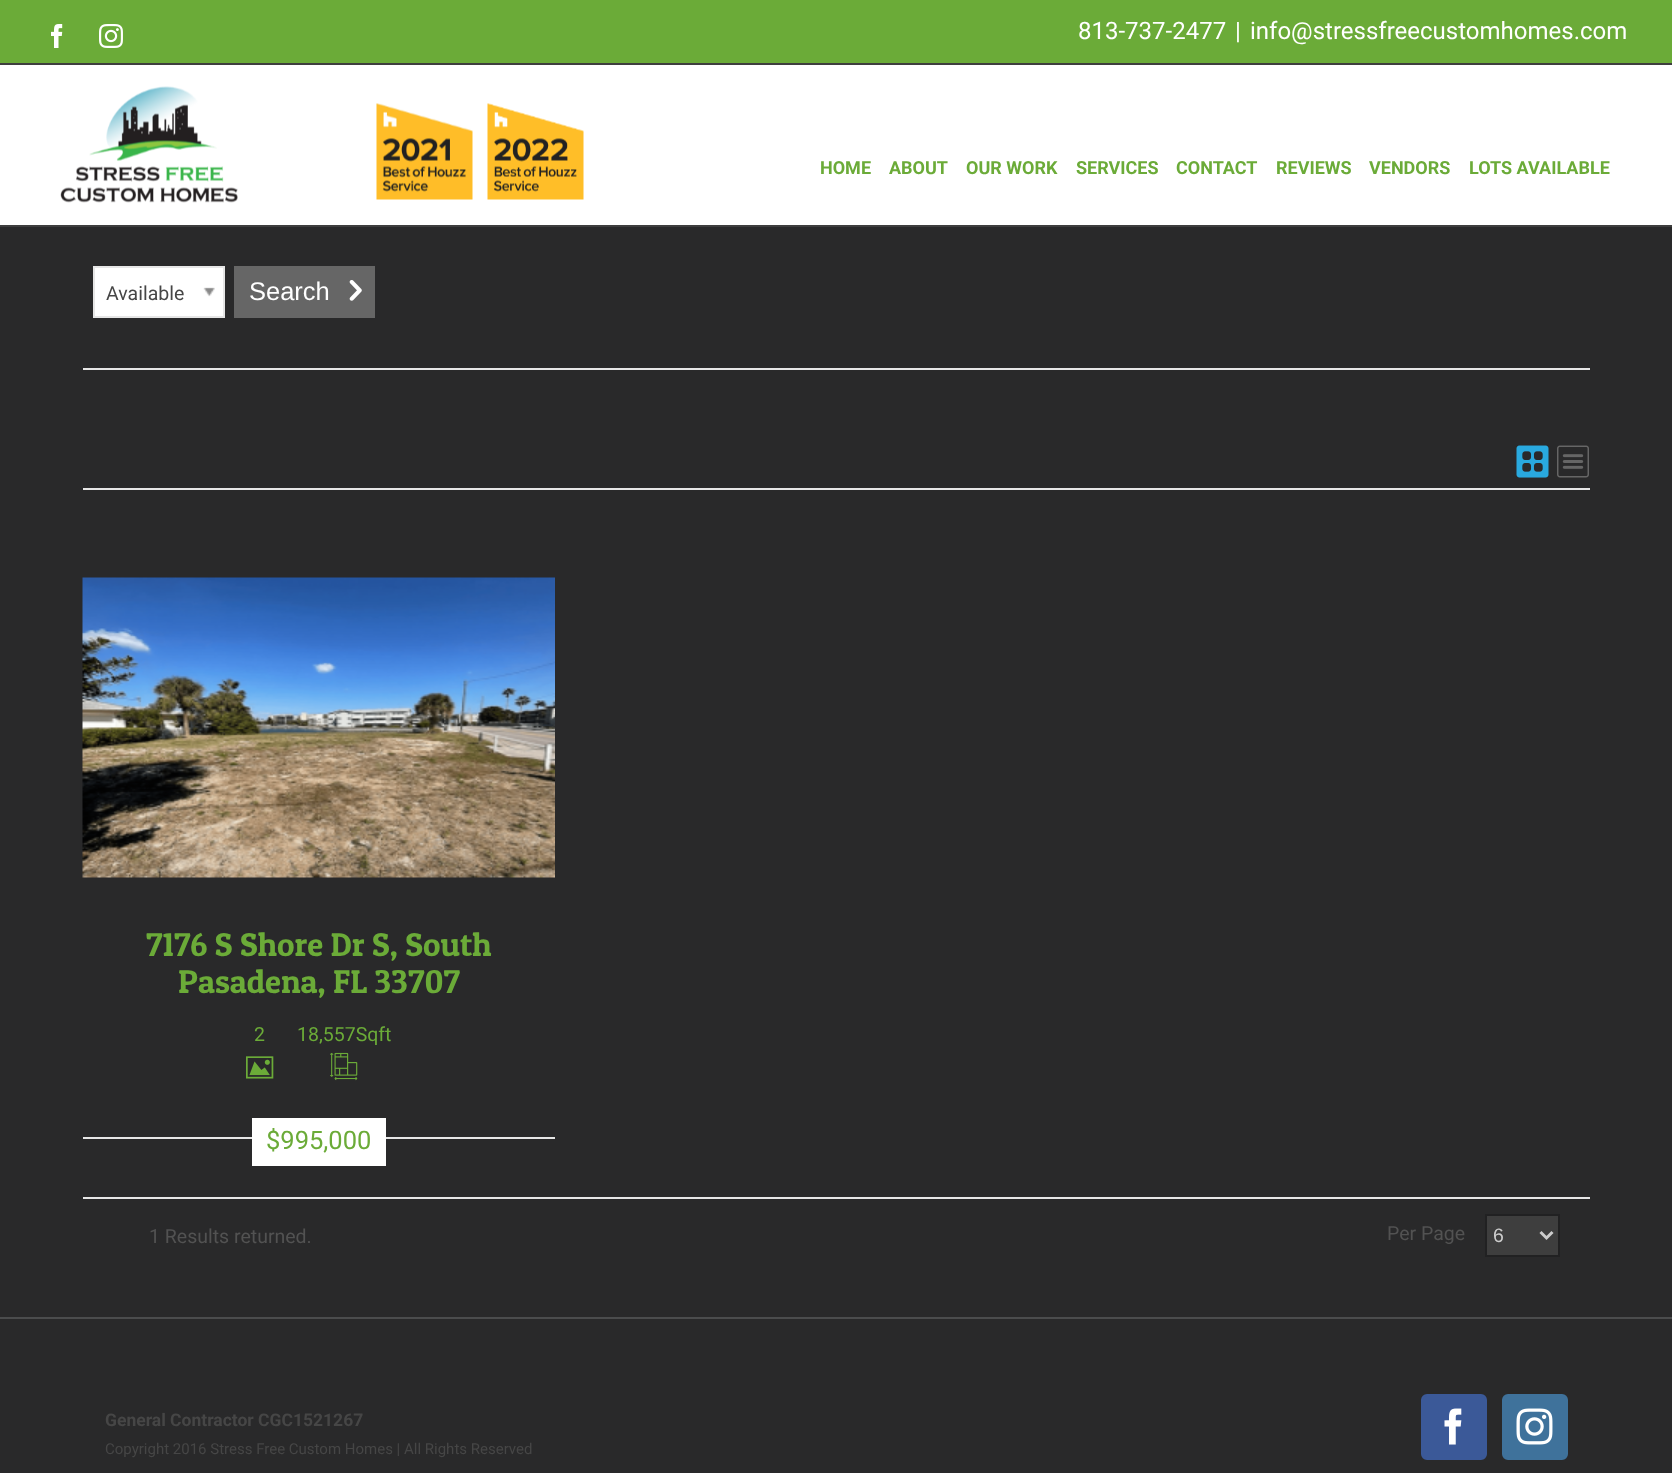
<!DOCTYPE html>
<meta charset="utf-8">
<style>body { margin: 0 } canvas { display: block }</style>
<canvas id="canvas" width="1672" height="1473"></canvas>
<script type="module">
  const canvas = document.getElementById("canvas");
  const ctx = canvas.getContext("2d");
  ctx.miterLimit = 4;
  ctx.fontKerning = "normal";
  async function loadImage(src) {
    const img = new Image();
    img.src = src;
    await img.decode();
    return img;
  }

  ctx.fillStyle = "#29292a";
  ctx.fillRect(0, 0, 1672, 1473);
  ctx.fillStyle = "#6bab38";
  ctx.fillRect(0, 0, 1672, 63);
  ctx.fillStyle = "#3e3e3e";
  ctx.fillRect(0, 63, 1672, 2);
  ctx.drawImage(await loadImage("img1.png"), 51, 24, 12, 24);
  ctx.drawImage(await loadImage("img2.png"), 99, 24, 24, 24);
  ctx.font = "24px Roboto";
  ctx.fillStyle = "#ffffff";
  ctx.fillText("813-737-2477", 1078, 39);
  ctx.fillText("|", 1235, 39);
  ctx.fillText("info@stressfreecustomhomes.com", 1250, 39);
  ctx.fillRect(0, 65, 1672, 160);
  ctx.fillStyle = "#3e3e3e";
  ctx.fillRect(0, 225, 1672, 2);
  ctx.drawImage(await loadImage("img3.png"), 60, 86, 178, 117);
  ctx.drawImage(await loadImage("img4.png"), 376, 103, 97, 97);
  ctx.drawImage(await loadImage("img5.png"), 487, 103, 97, 97);
  ctx.font = "bold 18px Roboto";
  ctx.fillStyle = "#6bab38";
  ctx.fillText("HOME", 820, 174);
  ctx.fillText("ABOUT", 889, 174);
  ctx.fillText("OUR WORK", 966, 174);
  ctx.fillText("SERVICES", 1076, 174);
  ctx.fillText("CONTACT", 1176, 174);
  ctx.fillText("REVIEWS", 1276, 174);
  ctx.fillText("VENDORS", 1369, 174);
  ctx.fillText("LOTS AVAILABLE", 1469, 174);
  ctx.fillStyle = "#e6e6e6";
  ctx.fillRect(83, 368, 1507, 2);
  ctx.fillStyle = "#ffffff";
  ctx.beginPath();
  ctx.rect(94, 267, 130, 50);
  ctx.fill();
  ctx.strokeStyle = "#e6e6e6";
  ctx.lineWidth = 2;
  ctx.stroke();
  ctx.font = "19.5px Roboto";
  ctx.fillStyle = "#464646";
  ctx.fillText("Available", 106, 300);
  ctx.drawImage(await loadImage("img6.png"), 203, 287, 12, 10);
  ctx.fillStyle = "#666666";
  ctx.fillRect(234, 266, 141, 52);
  ctx.font = "25.5px Liberation Sans";
  ctx.fillStyle = "#ffffff";
  ctx.fillText("Search", 249, 300);
  ctx.drawImage(await loadImage("img7.png"), 349, 280, 13, 21);
  ctx.fillStyle = "#e6e6e6";
  ctx.fillRect(83, 488, 1507, 2);
  ctx.drawImage(await loadImage("img8.png"), 1516, 445, 33, 33);
  ctx.drawImage(await loadImage("img9.png"), 1557, 445, 32, 33);
  ctx.fillRect(83, 1137, 472, 2);
  ctx.drawImage(await loadImage("img10.png"), 82, 577, 473, 301);
  ctx.font = "33px Patua One";
  ctx.fillStyle = "#6bab38";
  ctx.fillText("7176 S Shore Dr S, South", 146, 956);
  ctx.fillText("Pasadena, FL 33707", 178, 993);
  ctx.font = "19.5px Roboto";
  ctx.fillText("2", 254, 1041);
  ctx.drawImage(await loadImage("img11.png"), 246, 1056, 28, 23);
  ctx.fillText("18,557Sqft", 297, 1041);
  ctx.drawImage(await loadImage("img12.png"), 330, 1052, 28, 29);
  ctx.fillStyle = "#ffffff";
  ctx.fillRect(252, 1118, 134, 48);
  ctx.font = "25.5px Roboto";
  ctx.fillStyle = "#6bab38";
  ctx.fillText("$995,000", 266, 1149);
  ctx.fillStyle = "#e6e6e6";
  ctx.fillRect(83, 1197, 1507, 2);
  ctx.font = "19.5px Roboto";
  ctx.fillStyle = "#525252";
  ctx.fillText("1 Results returned.", 149, 1243);
  ctx.fillText("Per Page", 1387, 1240);
  ctx.fillStyle = "#3e3e3e";
  ctx.beginPath();
  ctx.rect(1486, 1215, 73, 41);
  ctx.fill();
  ctx.strokeStyle = "#212122";
  ctx.stroke();
  ctx.beginPath();
  ctx.moveTo(1540.5, 1232);
  ctx.lineTo(1546.5, 1238);
  ctx.lineTo(1552.5, 1232);
  ctx.strokeStyle = "#cccccc";
  ctx.lineWidth = 3;
  ctx.stroke();
  ctx.font = "19.5px Liberation Sans";
  ctx.fillStyle = "#cccccc";
  ctx.fillText("6", 1493, 1242);
  ctx.fillStyle = "#4b4c4d";
  ctx.fillRect(0, 1317, 1672, 2);
  ctx.font = "bold 17.5px Roboto";
  ctx.fillStyle = "#464646";
  ctx.fillText("General Contractor CGC1521267", 105, 1426);
  ctx.font = "15px Roboto";
  ctx.fillText("Copyright 2016 Stress Free Custom Homes | All Rights Reserved", 105, 1454);
  ctx.fillStyle = "#3b5998";
  ctx.beginPath();
  ctx.roundRect(1422, 1395, 64, 64, 5);
  ctx.fill();
  ctx.strokeStyle = "#3b5998";
  ctx.lineWidth = 2;
  ctx.stroke();
  ctx.drawImage(await loadImage("img13.png"), 1444, 1408, 18, 37);
  ctx.fillStyle = "#3f729b";
  ctx.beginPath();
  ctx.roundRect(1503, 1395, 64, 64, 5);
  ctx.fill();
  ctx.strokeStyle = "#3f729b";
  ctx.stroke();
  ctx.drawImage(await loadImage("img14.png"), 1516, 1408, 37, 37);
</script>
